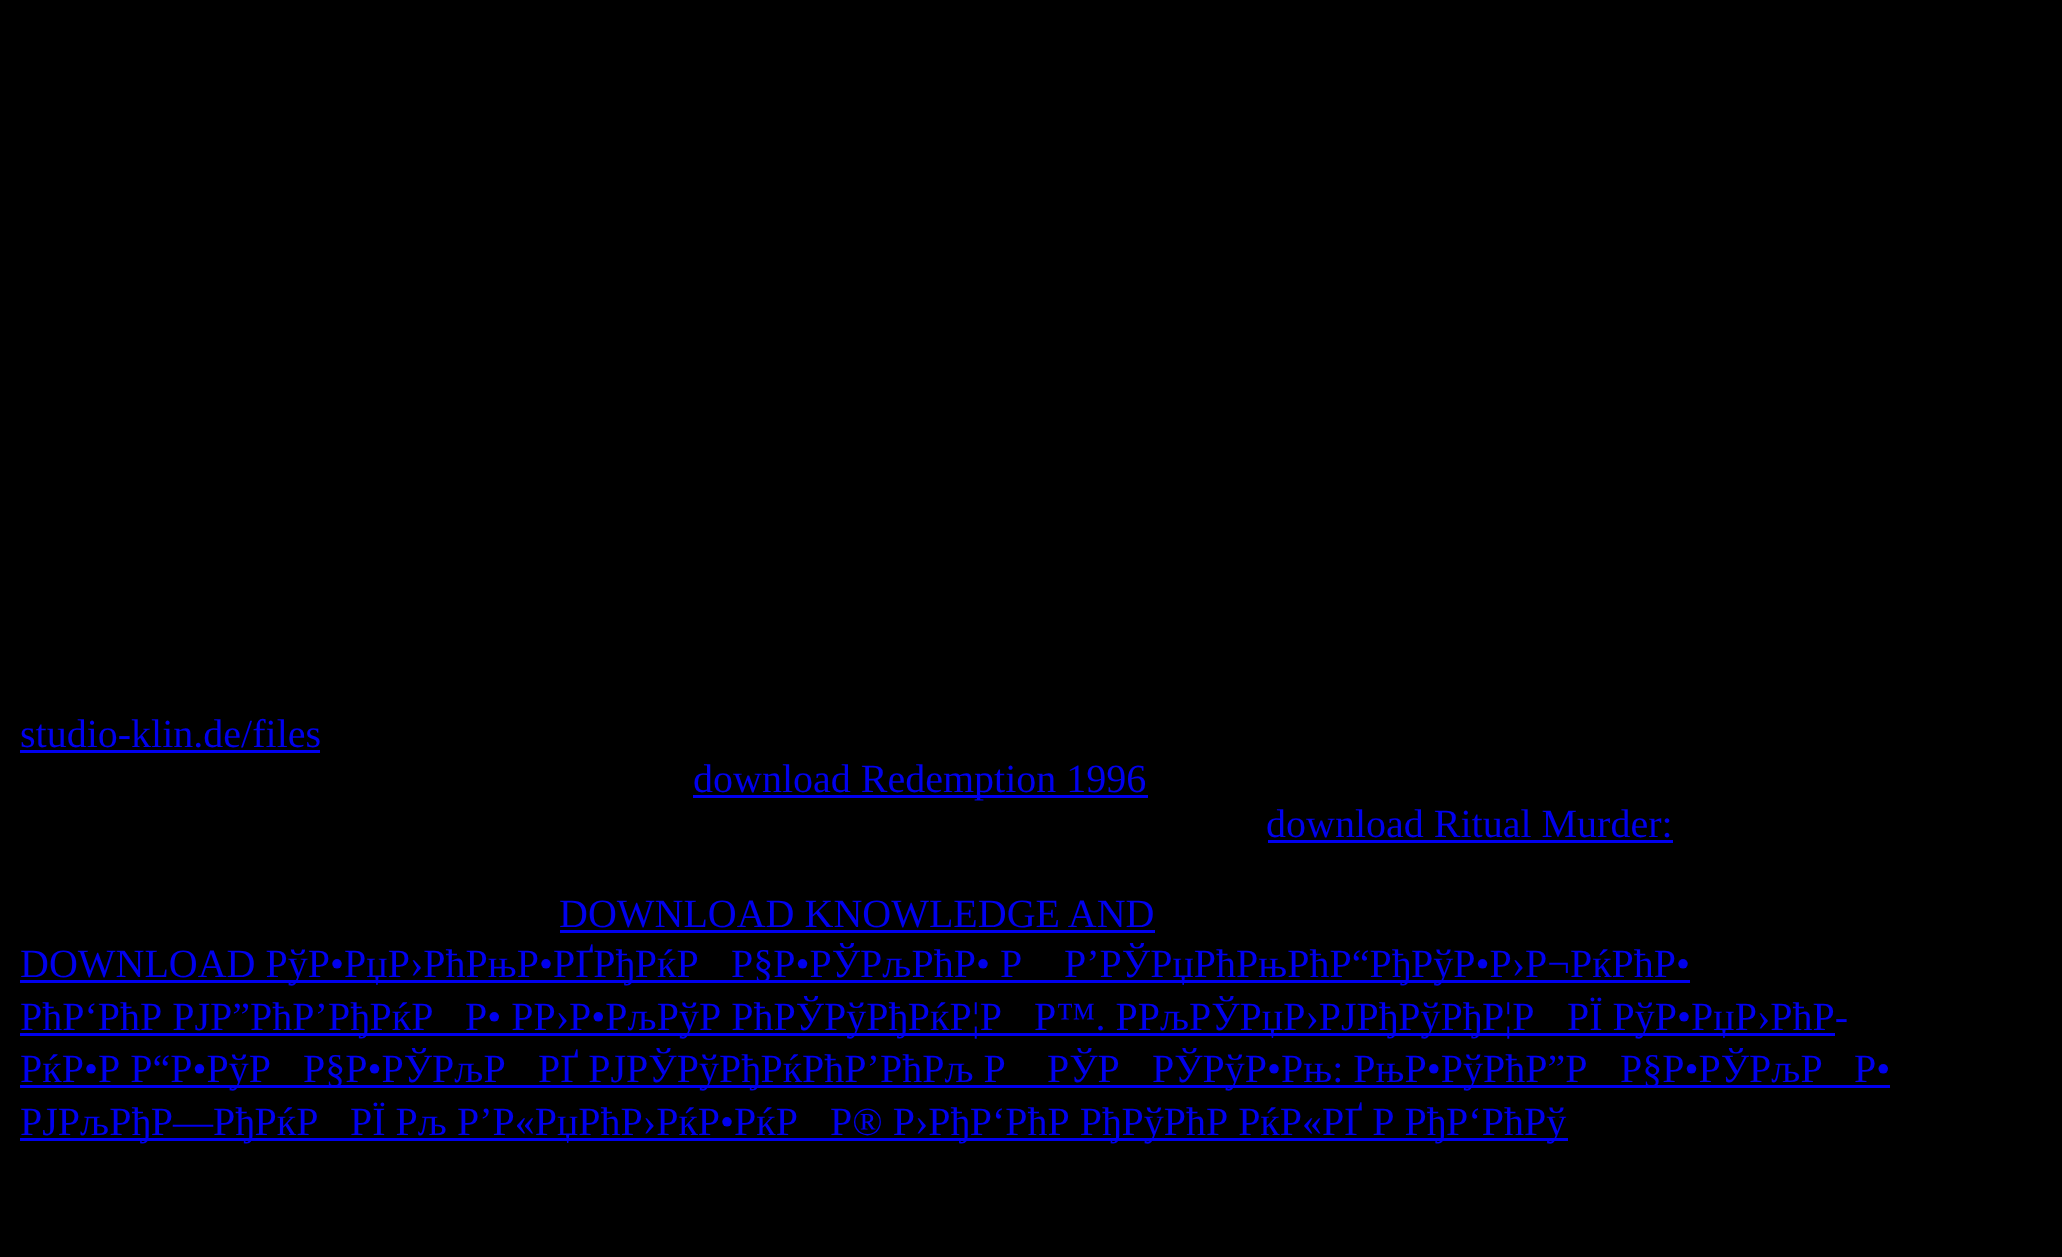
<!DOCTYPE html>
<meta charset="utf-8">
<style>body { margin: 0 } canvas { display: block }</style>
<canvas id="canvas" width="2062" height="1257"></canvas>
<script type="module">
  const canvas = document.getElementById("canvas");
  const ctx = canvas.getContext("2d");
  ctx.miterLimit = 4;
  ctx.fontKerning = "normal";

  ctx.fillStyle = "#000000";
  ctx.fillRect(0, 0, 2062, 1257);
  ctx.font = "40px Liberation Serif";
  ctx.fillStyle = "#0000ee";
  ctx.fillText("studio-klin.de/files", 20, 747);
  ctx.fillRect(20, 750, 300, 3);
  ctx.fillRect(693, 795, 455, 3);
  ctx.fillText("download Redemption 1996", 693, 792);
  ctx.fillText("download Ritual Murder:", 1266, 837);
  ctx.fillRect(1268, 840, 405, 3);
  ctx.fillText("DOWNLOAD KNOWLEDGE AND", 559, 927);
  ctx.fillRect(560, 930, 595, 3);
  ctx.fillRect(20, 980, 1670, 3);
  ctx.fillText("DOWNLOAD РўР•РџР›РћРњР•РҐРђРќР", 20, 977);
  ctx.fillText("Р§Р•РЎРљРћР• Р", 731, 977);
  ctx.fillText("Р’РЎРџРћРњРћР“РђРўР•Р›Р¬РќРћР•", 1064, 977);
  ctx.fillRect(20, 1033, 1815, 3);
  ctx.fillText("РћР‘РћР РЈР”РћР’РђРќР", 20, 1030);
  ctx.fillText("Р• РР›Р•РљРўР РћРЎРўРђРќР¦Р", 465, 1030);
  ctx.fillText("Р™. РРљРЎРџР›РЈРђРўРђР¦Р", 1034, 1030);
  ctx.fillText("РЇ РўР•РџР›РћР-", 1567, 1030);
  ctx.fillRect(20, 1085, 1870, 3);
  ctx.fillText("РќР•Р Р“Р•РўР", 20, 1082);
  ctx.fillText("Р§Р•РЎРљР", 303, 1082);
  ctx.fillText("РҐ РЈРЎРўРђРќРћР’РћРљ Р", 538, 1082);
  ctx.fillText("РЎР", 1047, 1082);
  ctx.fillText("РЎРўР•Рњ: РњР•РўРћР”Р", 1152, 1082);
  ctx.fillText("Р§Р•РЎРљР", 1620, 1082);
  ctx.fillText("Р•", 1854, 1082);
  ctx.fillRect(20, 1138, 1548, 3);
  ctx.fillText("РЈРљРђР—РђРќР", 20, 1135);
  ctx.fillText("РЇ Рљ Р’Р«РџРћР›РќР•РќР", 350, 1135);
  ctx.fillText("Р® Р›РђР‘РћР РђРўРћР РќР«РҐ Р РђР‘РћРў", 830, 1135);
</script>
